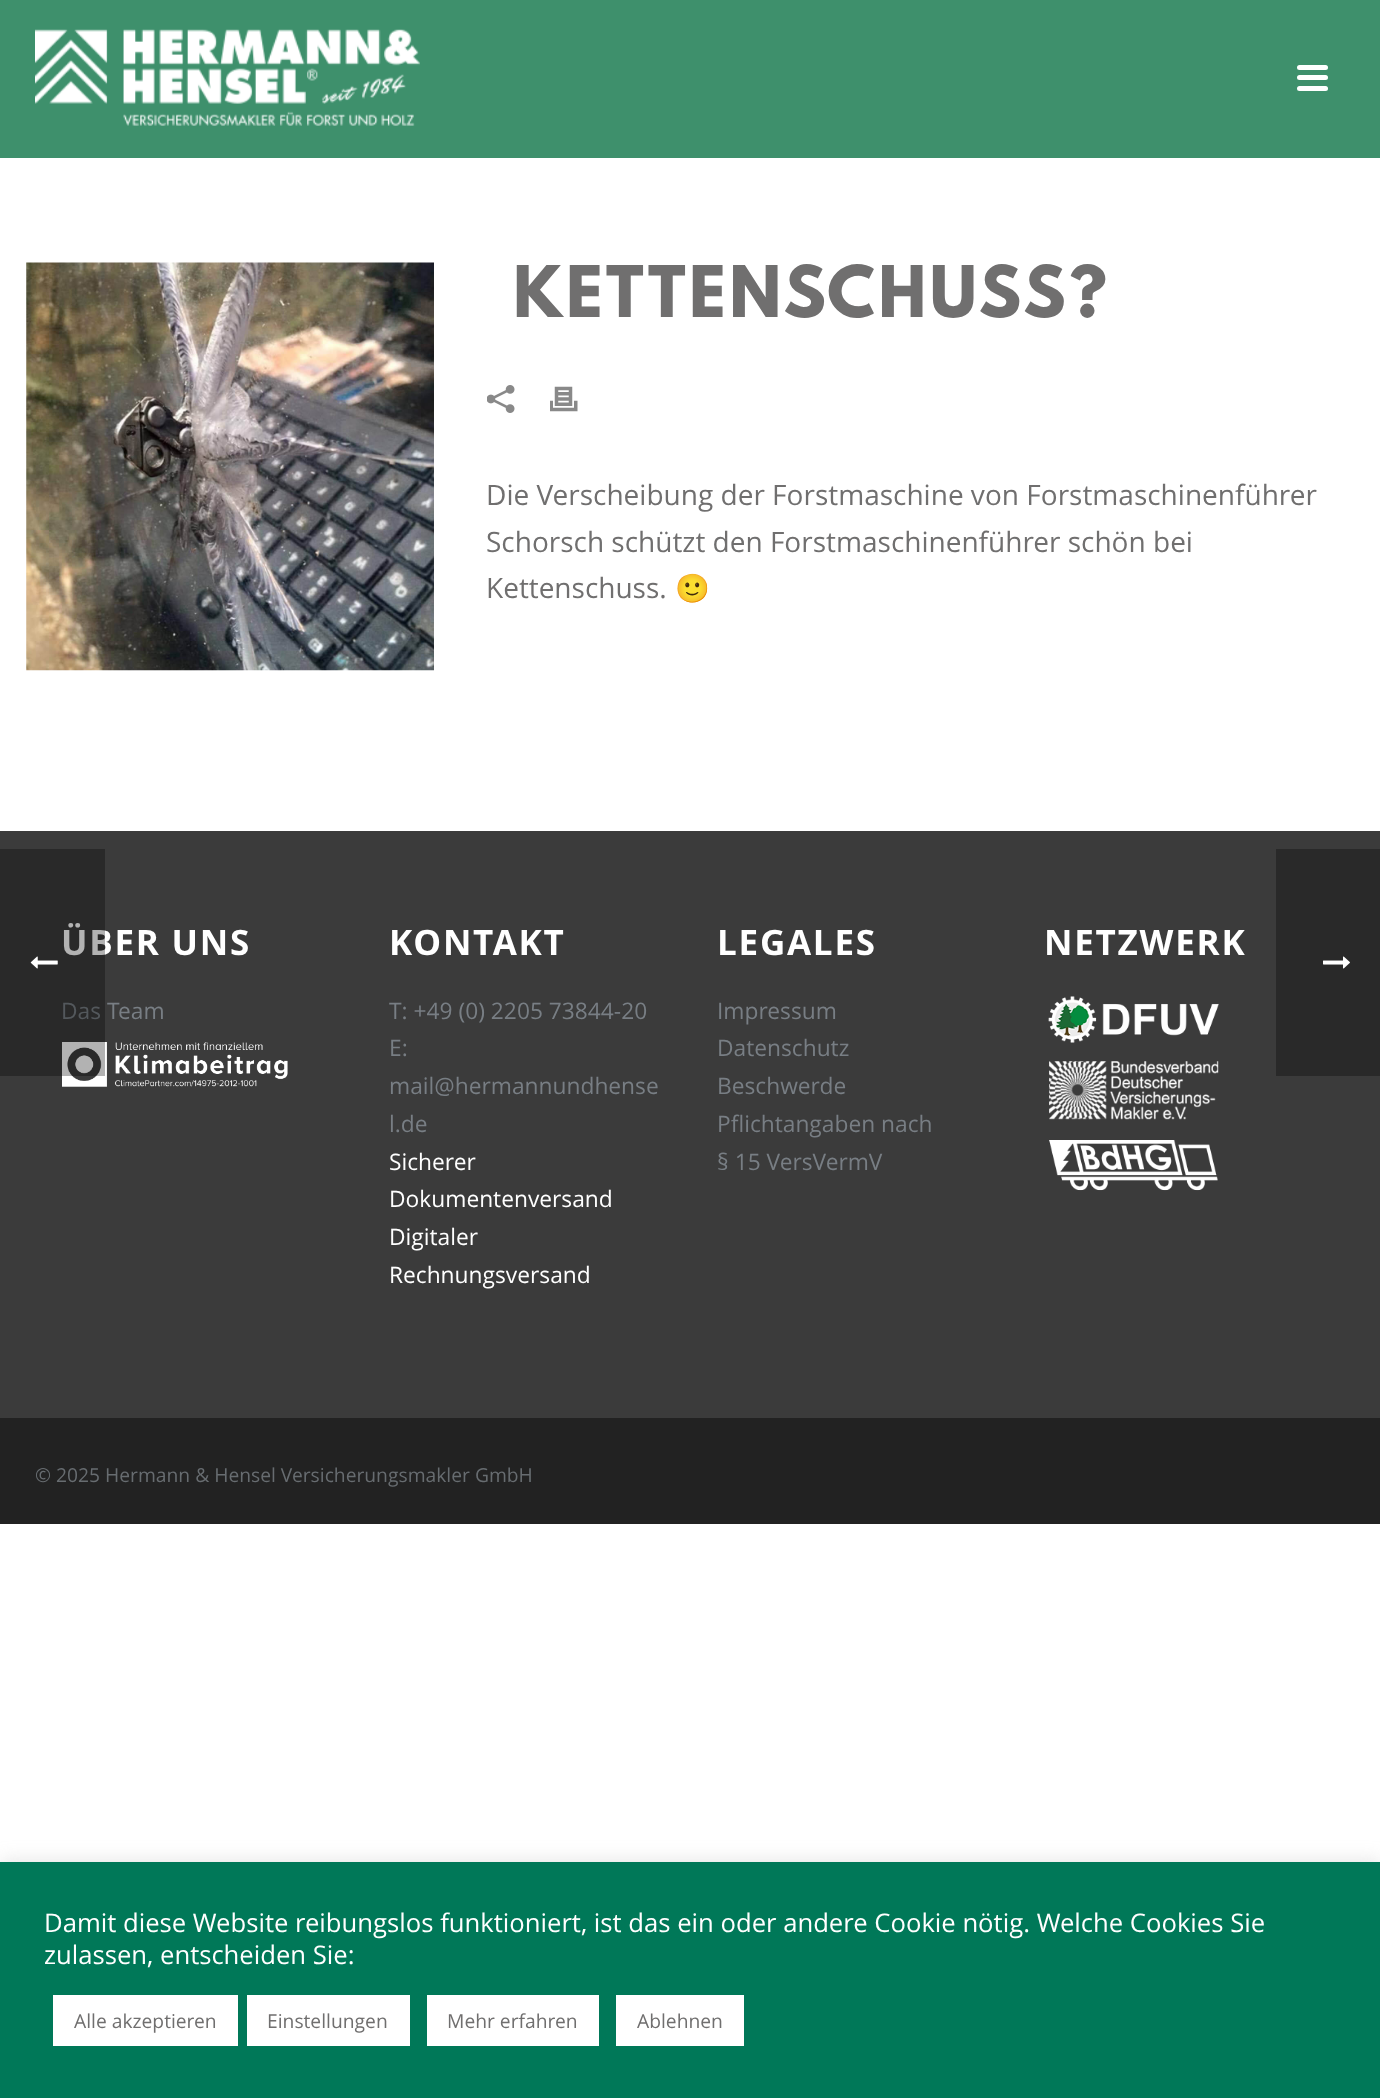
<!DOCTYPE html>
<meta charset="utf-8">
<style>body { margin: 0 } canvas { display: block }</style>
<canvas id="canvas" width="1380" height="2098"></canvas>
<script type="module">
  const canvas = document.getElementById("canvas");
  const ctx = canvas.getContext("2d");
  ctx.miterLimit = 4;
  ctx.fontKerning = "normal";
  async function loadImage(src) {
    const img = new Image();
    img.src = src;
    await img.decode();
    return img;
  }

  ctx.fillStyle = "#ffffff";
  ctx.fillRect(0, 0, 1380, 2098);
  ctx.fillStyle = "#3e906c";
  ctx.fillRect(0, 0, 1380, 158);
  ctx.drawImage(await loadImage("img1.png"), 35, 29, 385, 97);
  ctx.fillStyle = "#ffffff";
  ctx.beginPath();
  ctx.roundRect(1297, 65, 31, 5, 2.5);
  ctx.fill();
  ctx.beginPath();
  ctx.roundRect(1297, 75, 31, 5, 2.5);
  ctx.fill();
  ctx.beginPath();
  ctx.roundRect(1297, 86, 31, 5, 2.5);
  ctx.fill();
  ctx.drawImage(await loadImage("img2.png"), 26, 262, 408, 409);
  ctx.letterSpacing = "3.5px";
  ctx.font = "bold 63px League Spartan";
  ctx.fillStyle = "#706f6f";
  ctx.fillText("KETTENSCHUSS?", 513, 317);
  ctx.drawImage(await loadImage("img3.png"), 487, 385, 28, 28);
  ctx.drawImage(await loadImage("img4.png"), 550, 386, 28, 26);
  ctx.letterSpacing = "0px";
  ctx.font = "28px Open Sans";
  ctx.fillText("Die Verscheibung der Forstmaschine von Forstmaschinenführer", 486, 505);
  ctx.fillText("Schorsch schützt den Forstmaschinenführer schön bei", 486, 552);
  ctx.fillText("Kettenschuss.", 486, 598);
  ctx.font = "28px Noto Color Emoji";
  ctx.fillText("🙂", 675, 598);
  ctx.fillStyle = "#3b3b3b";
  ctx.fillRect(0, 831, 1380, 587);
  ctx.letterSpacing = "1.75px";
  ctx.font = "bold 35px Open Sans";
  ctx.fillStyle = "#ffffff";
  ctx.fillText("ÜBER UNS", 61, 955);
  ctx.letterSpacing = "0px";
  ctx.font = "22.75px Open Sans";
  ctx.fillStyle = "#787e84";
  ctx.fillText("Das Team", 61, 1019);
  ctx.drawImage(await loadImage("img5.png"), 62, 1042, 226, 45);
  ctx.letterSpacing = "1.75px";
  ctx.font = "bold 35px Open Sans";
  ctx.fillStyle = "#ffffff";
  ctx.fillText("KONTAKT", 389, 955);
  ctx.letterSpacing = "0px";
  ctx.font = "22.75px Open Sans";
  ctx.fillStyle = "#787e84";
  ctx.fillText("T: +49 (0) 2205 73844-20", 389, 1019);
  ctx.fillText("E:", 389, 1056);
  ctx.fillText("mail@hermannundhense", 389, 1094);
  ctx.fillText("l.de", 389, 1132);
  ctx.fillStyle = "#ffffff";
  ctx.fillText("Sicherer", 389, 1170);
  ctx.fillText("Dokumentenversand", 389, 1207);
  ctx.fillText("Digitaler", 389, 1245);
  ctx.fillText("Rechnungsversand", 389, 1283);
  ctx.letterSpacing = "1.75px";
  ctx.font = "bold 35px Open Sans";
  ctx.fillText("LEGALES", 717, 955);
  ctx.letterSpacing = "0px";
  ctx.font = "22.75px Open Sans";
  ctx.fillStyle = "#787e84";
  ctx.fillText("Impressum", 717, 1019);
  ctx.fillText("Datenschutz", 717, 1056);
  ctx.fillText("Beschwerde", 717, 1094);
  ctx.fillText("Pflichtangaben nach", 717, 1132);
  ctx.fillText("§ 15 VersVermV", 717, 1170);
  ctx.letterSpacing = "1.75px";
  ctx.font = "bold 35px Open Sans";
  ctx.fillStyle = "#ffffff";
  ctx.fillText("NETZWERK", 1044, 955);
  ctx.drawImage(await loadImage("img6.png"), 1048, 996, 171, 47);
  ctx.drawImage(await loadImage("img7.png"), 1049, 1061, 170, 59);
  ctx.drawImage(await loadImage("img8.png"), 1049, 1140, 169, 51);
  ctx.fillStyle = "#222222";
  ctx.fillRect(0, 1418, 1380, 106);
  ctx.letterSpacing = "0px";
  ctx.font = "19.25px Open Sans";
  ctx.fillStyle = "#676c70";
  ctx.fillText("© 2025 Hermann & Hensel Versicherungsmakler GmbH", 35, 1482);
  ctx.fillStyle = "rgba(0, 0, 0, 0.3)";
  ctx.fillRect(0, 849, 105, 227);
  ctx.drawImage(await loadImage("img9.png"), 30, 956, 28, 13);
  ctx.fillStyle = "#292929";
  ctx.fillRect(1276, 849, 104, 227);
  ctx.drawImage(await loadImage("img10.png"), 1323, 956, 27, 13);
  ctx.fillStyle = "rgba(172, 171, 171, 0.3)";
  ctx.filter = "blur(9px)";
  ctx.beginPath();
  ctx.rect(0, 1860, 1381, 237);
  ctx.fill();
  ctx.filter = "none";
  ctx.fillStyle = "#007858";
  ctx.fillRect(0, 1862, 1380, 236);
  ctx.font = "25.65px Open Sans";
  ctx.fillStyle = "#ffffff";
  ctx.fillText("Damit diese Website reibungslos funktioniert, ist das ein oder andere Cookie nötig. Welche Cookies Sie", 44, 1932);
  ctx.fillText("zulassen, entscheiden Sie:", 44, 1964);
  ctx.fillRect(53, 1995, 185, 51);
  ctx.font = "19.25px Open Sans";
  ctx.fillStyle = "#706f6f";
  ctx.fillText("Alle akzeptieren", 74, 2028);
  ctx.fillStyle = "#ffffff";
  ctx.fillRect(247, 1995, 163, 51);
  ctx.fillStyle = "#706f6f";
  ctx.fillText("Einstellungen", 267, 2028);
  ctx.fillStyle = "#ffffff";
  ctx.fillRect(427, 1995, 172, 51);
  ctx.fillStyle = "#706f6f";
  ctx.fillText("Mehr erfahren", 447, 2028);
  ctx.fillStyle = "#ffffff";
  ctx.fillRect(616, 1995, 128, 51);
  ctx.fillStyle = "#706f6f";
  ctx.fillText("Ablehnen", 637, 2028);
</script>
